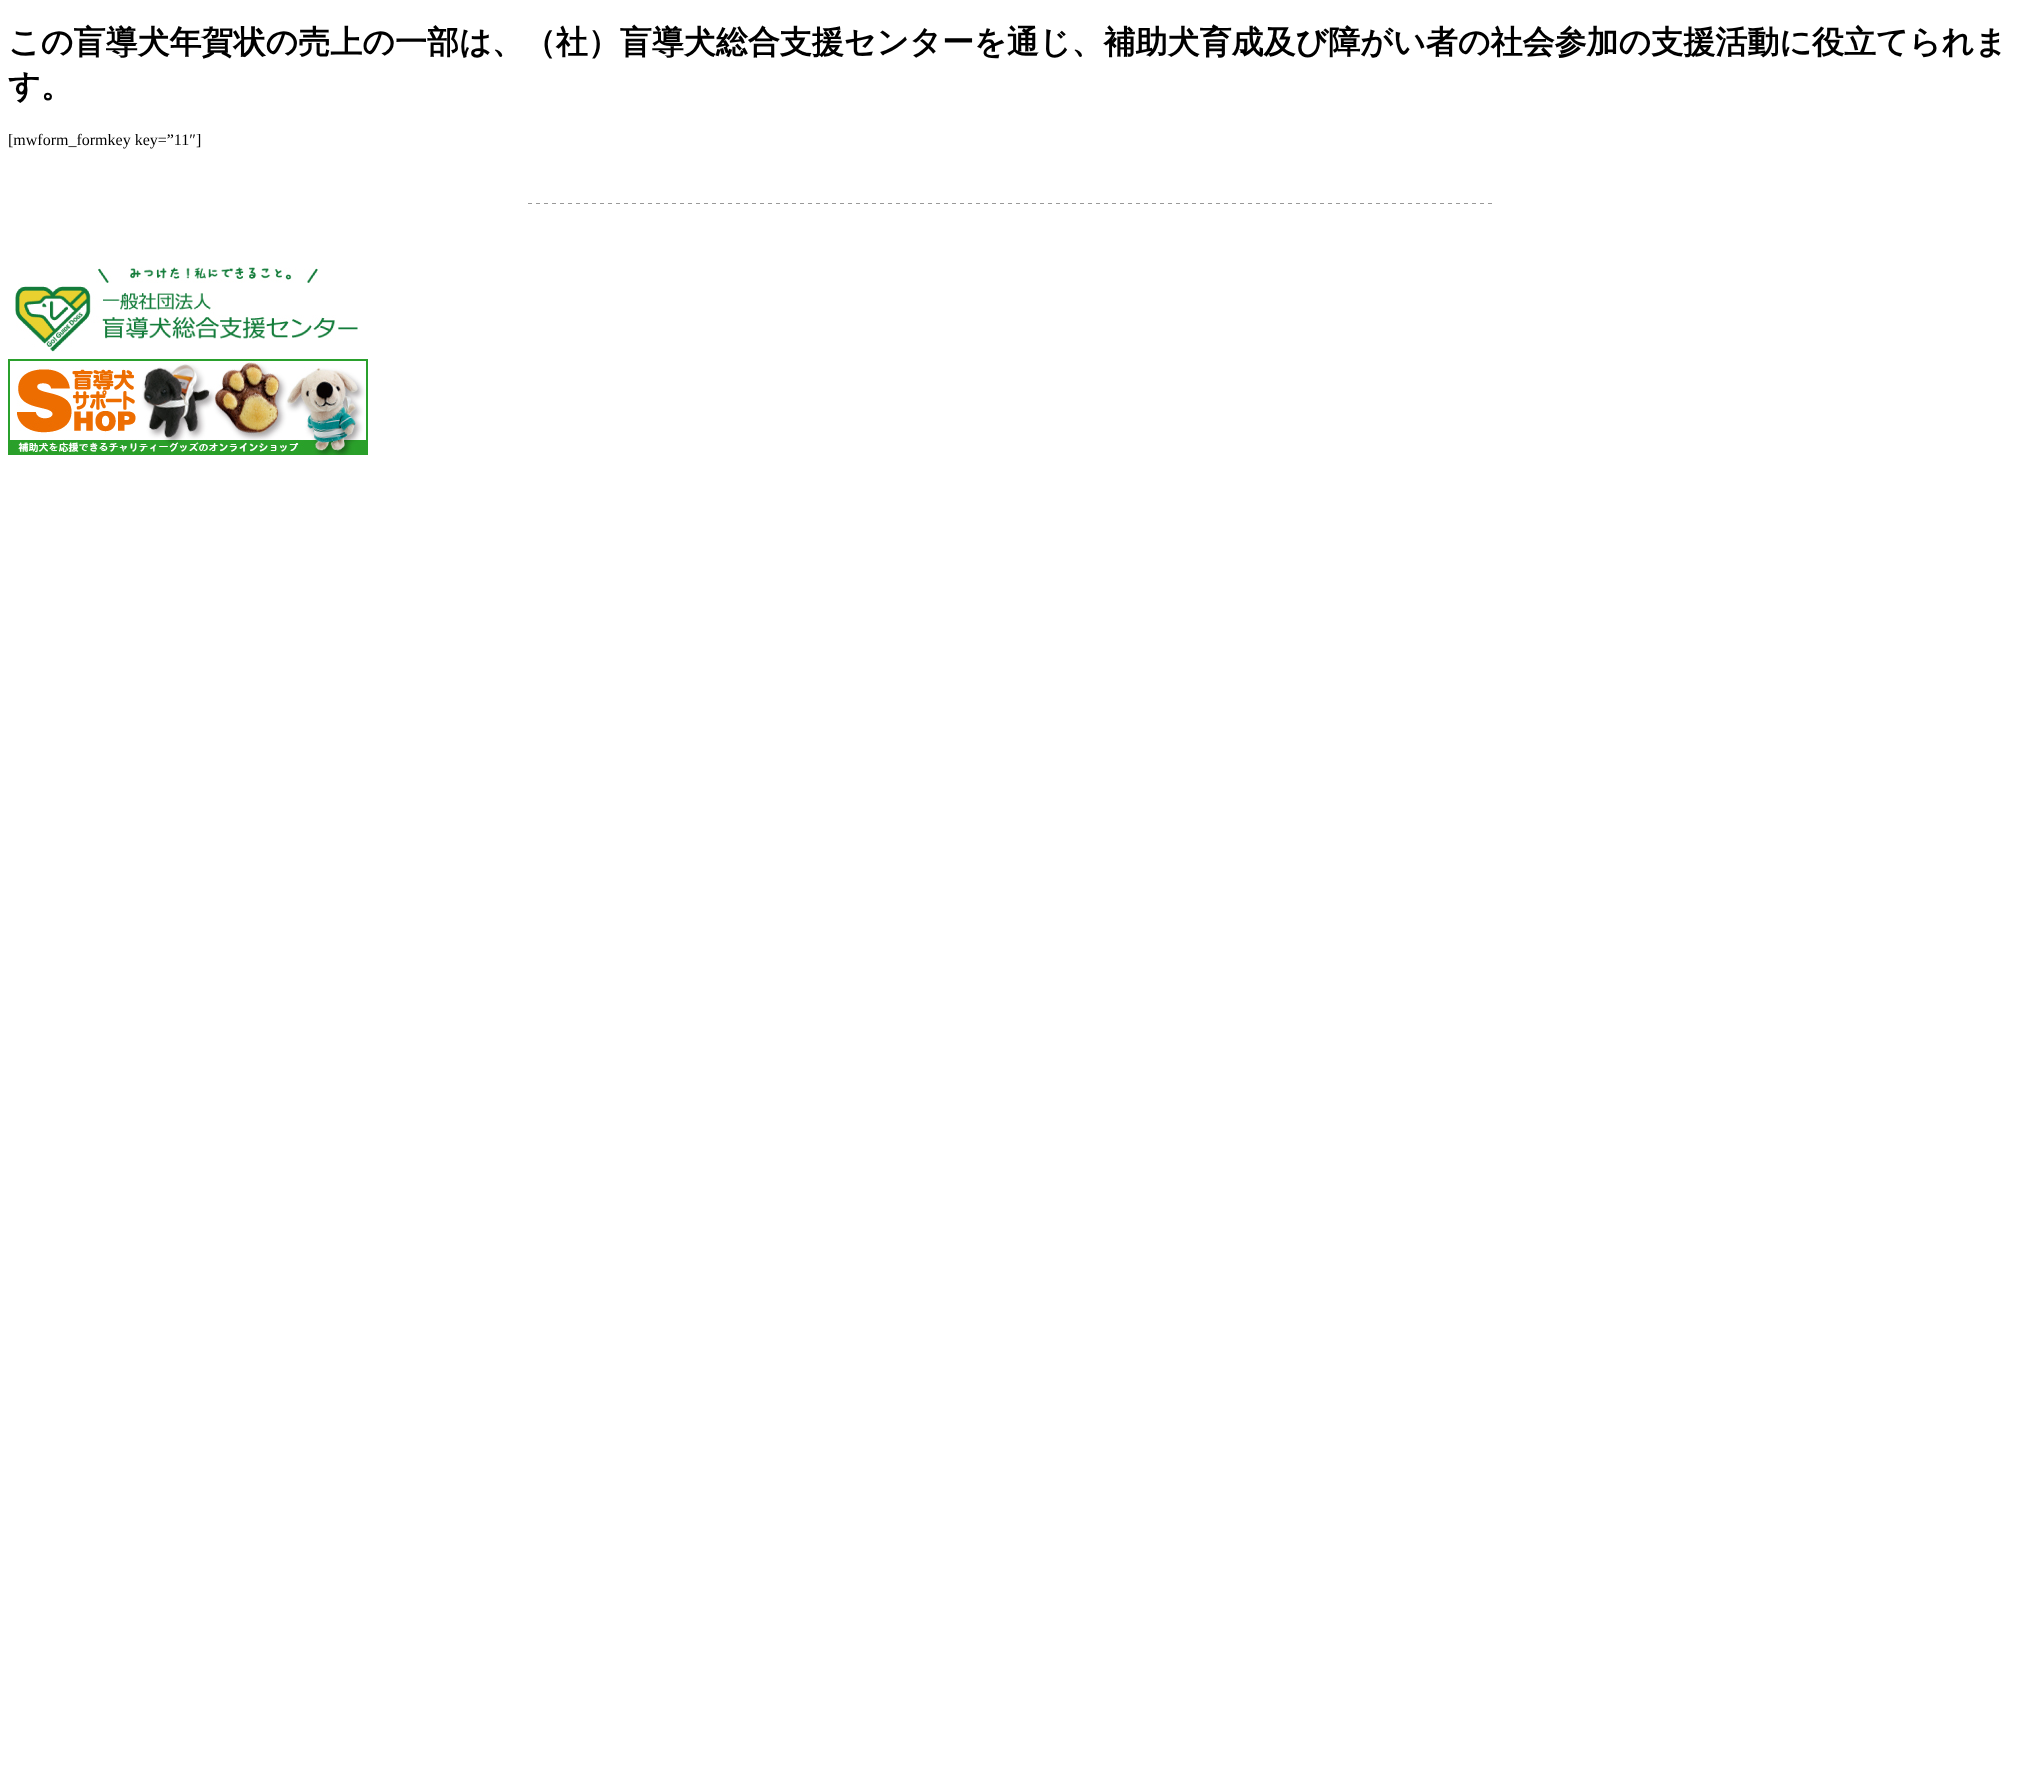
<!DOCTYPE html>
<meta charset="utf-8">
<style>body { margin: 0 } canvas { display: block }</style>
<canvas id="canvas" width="2019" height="1786"></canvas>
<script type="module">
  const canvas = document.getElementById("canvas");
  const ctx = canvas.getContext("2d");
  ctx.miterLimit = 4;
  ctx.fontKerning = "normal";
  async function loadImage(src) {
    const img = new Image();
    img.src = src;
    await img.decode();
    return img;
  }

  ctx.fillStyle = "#ffffff";
  ctx.fillRect(0, 0, 2019, 1786);
  ctx.font = "bold 32px WenQuanYi Zen Hei";
  ctx.fillStyle = "#000000";
  ctx.fillText("この盲導犬年賀状の売上の一部は、（社）盲導犬総合支援センターを通じ、補助犬育成及び障がい者の社会参加の支援活動に役立てられま", 8, 53);
  ctx.fillText("す。", 8, 97);
  ctx.font = "16px Liberation Serif";
  ctx.fillText("[mwform_formkey key=”11″]", 8, 145);
  ctx.drawImage(await loadImage("img1.png"), 528, 203, 964, 1);
  ctx.drawImage(await loadImage("img2.png"), 15, 267, 343, 85);
  ctx.drawImage(await loadImage("img3.png"), 8, 359, 360, 96);
</script>
